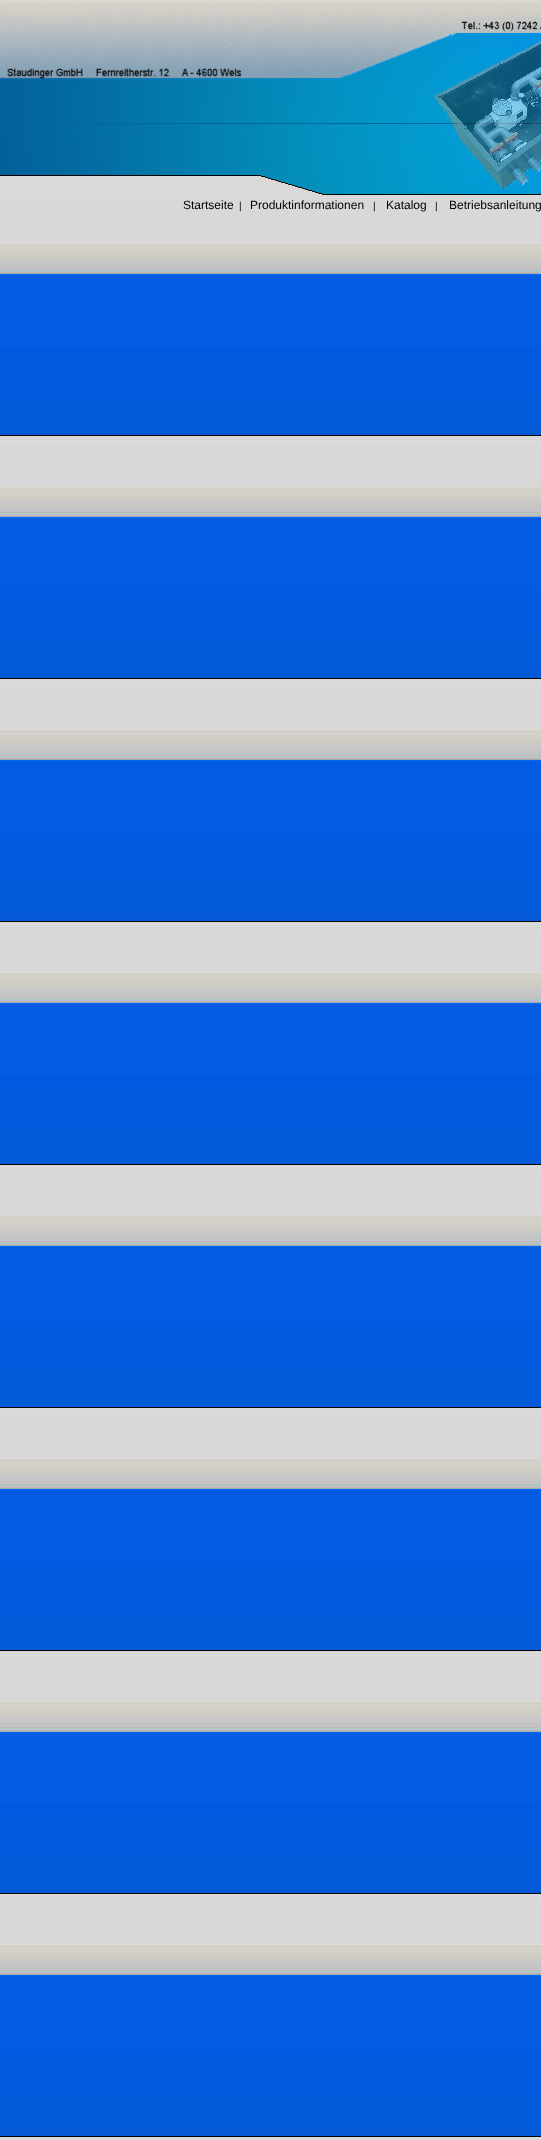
<!DOCTYPE html>
<meta charset="utf-8">
<style>body { margin: 0 } canvas { display: block }</style>
<canvas id="canvas" width="541" height="2140"></canvas>
<script type="module">
  const canvas = document.getElementById("canvas");
  const ctx = canvas.getContext("2d");
  ctx.miterLimit = 4;
  ctx.fontKerning = "normal";
  async function loadImage(src) {
    const img = new Image();
    img.src = src;
    await img.decode();
    return img;
  }

  ctx.fillStyle = "#ffffff";
  ctx.fillRect(0, 0, 541, 2140);
  ctx.drawImage(await loadImage("img1.png"), 0, 0, 541, 2140);
  ctx.drawImage(await loadImage("img2.png"), 0, 2, 430, 193);
  ctx.drawImage(await loadImage("img3.png"), 430, 2, 111, 193);
  ctx.font = "12px Liberation Sans";
  ctx.fillStyle = "#000000";
  ctx.fillText("Startseite", 183, 209);
  ctx.font = "10px Liberation Sans";
  ctx.fillText("|", 239, 209);
  ctx.font = "12px Liberation Sans";
  ctx.fillText("Produktinformationen", 250, 209);
  ctx.font = "10px Liberation Sans";
  ctx.fillText("|", 373, 209);
  ctx.font = "12px Liberation Sans";
  ctx.fillText("Katalog", 386, 209);
  ctx.font = "10px Liberation Sans";
  ctx.fillText("|", 435, 209);
  ctx.font = "12px Liberation Sans";
  ctx.fillText("Betriebsanleitung", 449, 209);
</script>
